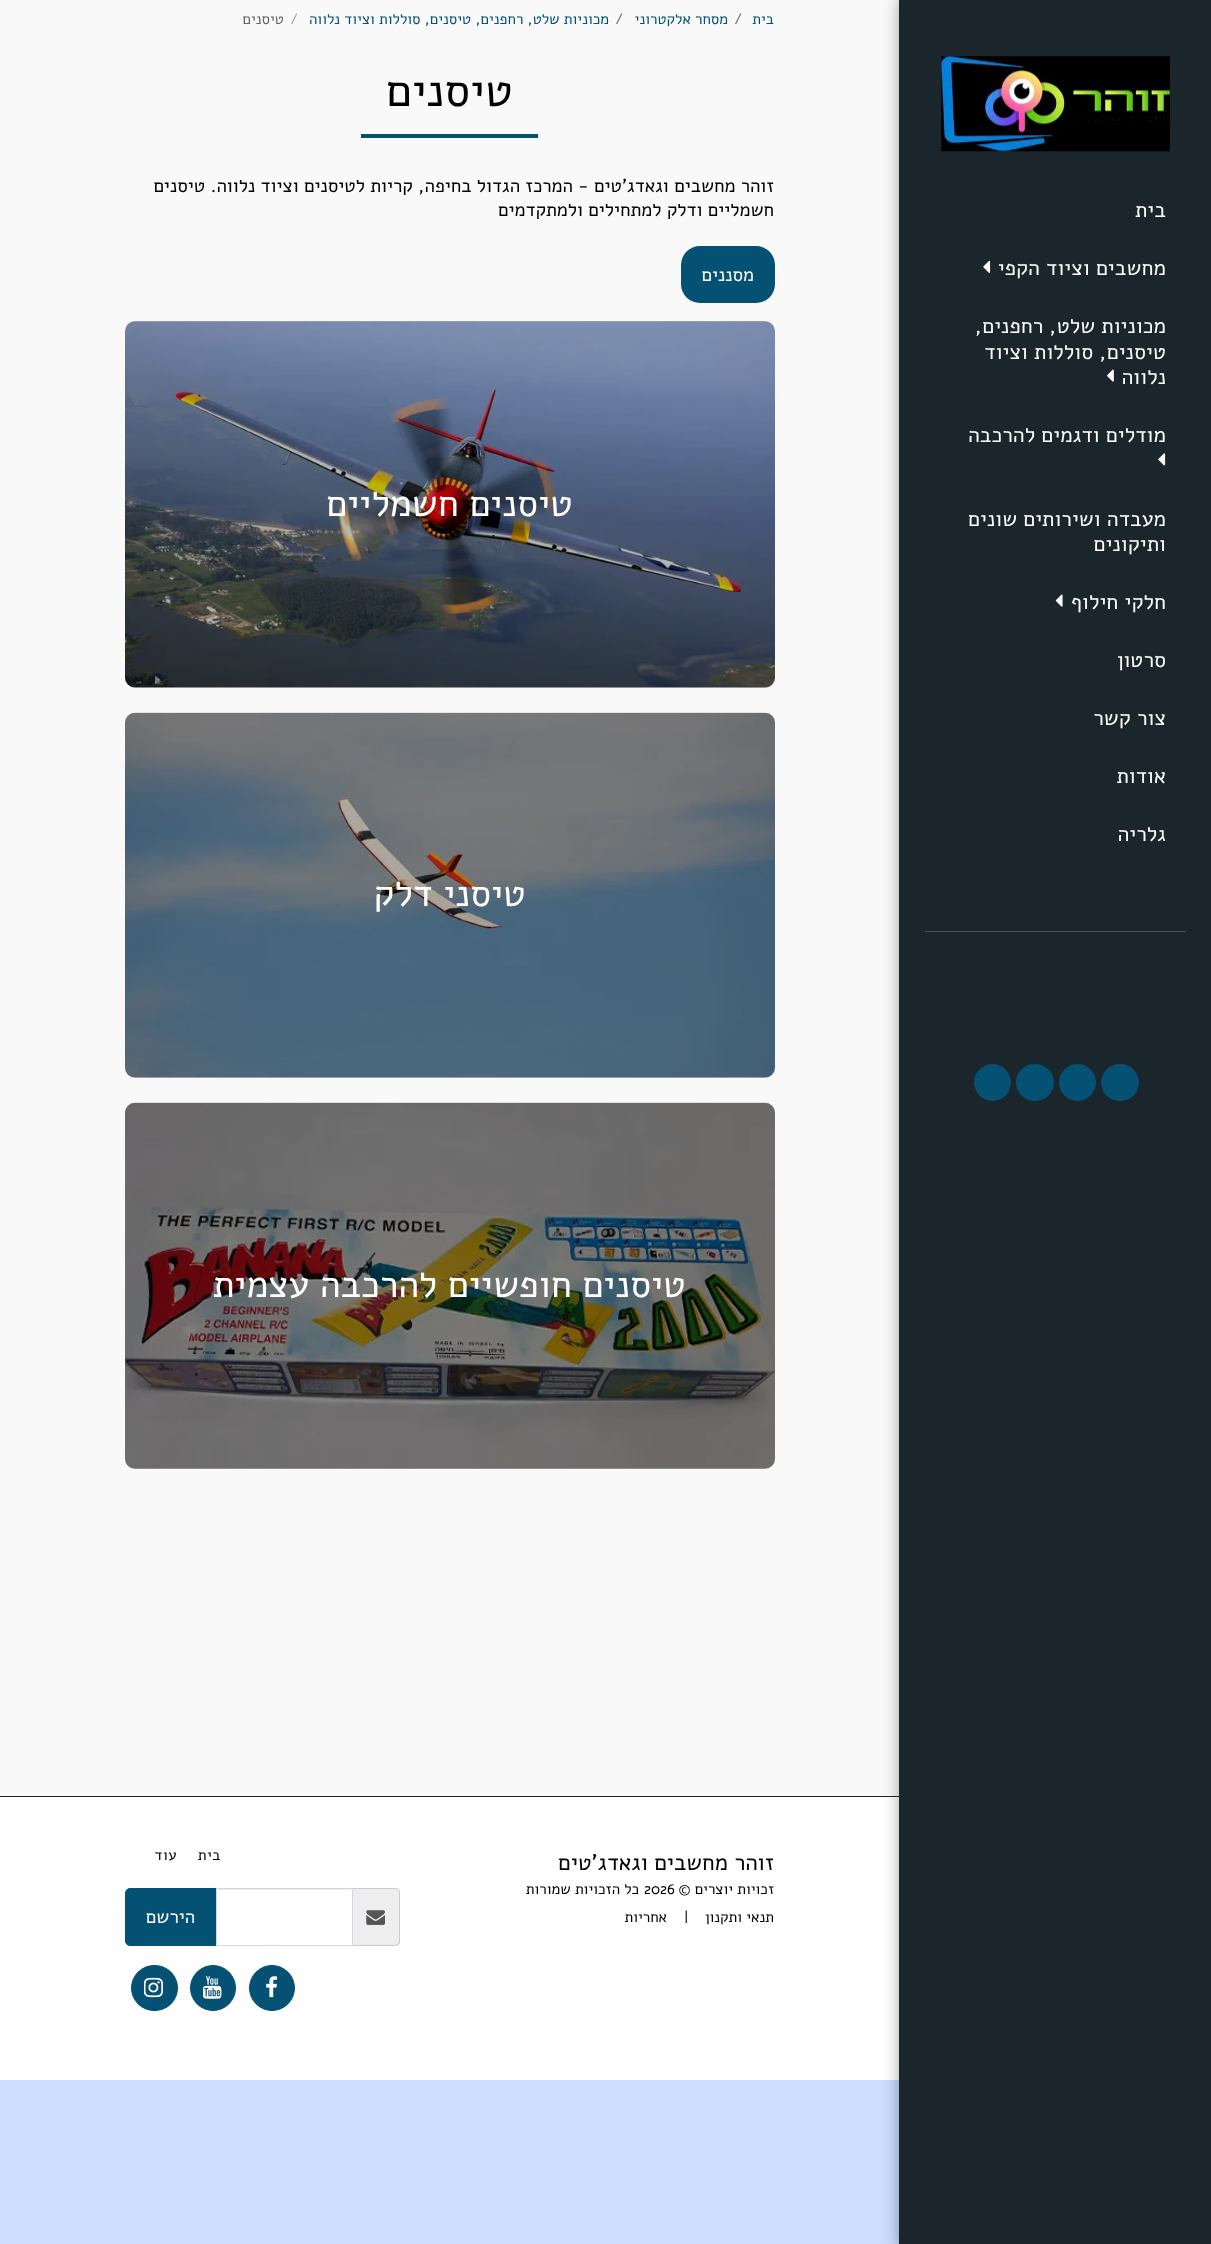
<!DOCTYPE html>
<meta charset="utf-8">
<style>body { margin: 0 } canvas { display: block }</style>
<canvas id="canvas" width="1211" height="2244"></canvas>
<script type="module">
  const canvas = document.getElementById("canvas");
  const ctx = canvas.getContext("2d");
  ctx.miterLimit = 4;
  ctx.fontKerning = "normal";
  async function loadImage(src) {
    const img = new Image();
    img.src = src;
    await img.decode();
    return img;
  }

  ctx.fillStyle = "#ccddff";
  ctx.fillRect(0, 0, 1211, 2244);
  ctx.fillStyle = "#f9f9f9";
  ctx.fillRect(0, 0, 899, 1796);
  ctx.fillStyle = "#ffffff";
  ctx.fillRect(0, 1797, 899, 283);
  ctx.fillStyle = "#1b262c";
  ctx.fillRect(0, 1796, 899, 1);
  ctx.fillStyle = "rgba(0, 0, 0, 0.35)";
  ctx.filter = "blur(7.5px)";
  ctx.beginPath();
  ctx.rect(899, -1, 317, 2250);
  ctx.fill();
  ctx.filter = "none";
  ctx.fillStyle = "#1b262c";
  ctx.fillRect(899, 0, 312, 2244);
  ctx.drawImage(await loadImage("img1.png"), 941, 56, 229, 96);
  ctx.letterSpacing = "0.1px";
  ctx.direction = "rtl";
  ctx.font = "21.25px Alef";
  ctx.fillStyle = "#ffffff";
  ctx.fillText("בית", 1166, 217);
  ctx.fillText("מחשבים וציוד הקפי", 1166, 275);
  ctx.drawImage(await loadImage("img2.png"), 983, 260, 8, 13);
  ctx.fillText("מכוניות שלט, רחפנים,", 1166, 333);
  ctx.fillText("טיסנים, סוללות וציוד", 1166, 359);
  ctx.fillText("נלווה", 1166, 384);
  ctx.drawImage(await loadImage("img3.png"), 1107, 369, 7, 13);
  ctx.fillText("מודלים ודגמים להרכבה", 1166, 442);
  ctx.drawImage(await loadImage("img4.png"), 1158, 453, 8, 13);
  ctx.fillText("מעבדה ושירותים שונים", 1166, 526);
  ctx.fillText("ותיקונים", 1166, 551);
  ctx.fillText("חלקי חילוף", 1166, 609);
  ctx.drawImage(await loadImage("img5.png"), 1055, 594, 8, 13);
  ctx.fillText("סרטון", 1166, 667);
  ctx.fillText("צור קשר", 1166, 725);
  ctx.fillText("אודות", 1166, 783);
  ctx.fillText("גלריה", 1166, 841);
  ctx.fillStyle = "#495156";
  ctx.fillRect(925, 931, 261, 1);
  ctx.fillStyle = "#045174";
  ctx.beginPath();
  ctx.roundRect(1101, 1064, 38, 37, 18.5);
  ctx.fill();
  ctx.beginPath();
  ctx.arc(1077.5, 1082.5, 18.5, 0, Math.PI * 2);
  ctx.fill();
  ctx.beginPath();
  ctx.roundRect(1016, 1064, 38, 37, 18.5);
  ctx.fill();
  ctx.beginPath();
  ctx.arc(992.5, 1082.5, 18.5, 0, Math.PI * 2);
  ctx.fill();
  ctx.letterSpacing = "0px";
  ctx.font = "15px Alef";
  ctx.fillText("בית", 774, 24);
  ctx.direction = "ltr";
  ctx.fillStyle = "#646464";
  ctx.fillText("/", 734, 24);
  ctx.direction = "rtl";
  ctx.fillStyle = "#045174";
  ctx.fillText("מסחר אלקטרוני", 728, 24);
  ctx.direction = "ltr";
  ctx.fillStyle = "#646464";
  ctx.fillText("/", 615, 24);
  ctx.direction = "rtl";
  ctx.fillStyle = "#045174";
  ctx.fillText("מכוניות שלט, רחפנים, טיסנים, סוללות וציוד נלווה", 609, 24);
  ctx.direction = "ltr";
  ctx.fillStyle = "#9f9f9f";
  ctx.fillText("/", 290, 24);
  ctx.direction = "rtl";
  ctx.fillStyle = "#646464";
  ctx.fillText("טיסנים", 284, 24);
  ctx.fillStyle = "#045174";
  ctx.fillRect(361, 134, 177, 4);
  ctx.font = "46px Alef";
  ctx.fillStyle = "#000000";
  ctx.fillText("טיסנים", 513, 106);
  ctx.font = "18.75px Alef";
  ctx.fillText("זוהר מחשבים וגאדג'טים - המרכז הגדול בחיפה, קריות לטיסנים וציוד נלווה. טיסנים", 774, 192);
  ctx.fillText("חשמליים ודלק למתחילים ולמתקדמים", 774, 216);
  ctx.fillStyle = "#045174";
  ctx.beginPath();
  ctx.roundRect(681, 246, 94, 57, 19);
  ctx.fill();
  ctx.fillStyle = "#ffffff";
  ctx.fillText("מסננים", 754, 281);
  ctx.drawImage(await loadImage("img6.png"), 125, 321, 650, 367);
  ctx.fillStyle = "rgba(0, 0, 0, 0.28)";
  ctx.beginPath();
  ctx.roundRect(125, 321, 650, 367, 10);
  ctx.fill();
  ctx.font = "37.5px Alef";
  ctx.fillStyle = "#ffffff";
  ctx.fillText("טיסנים חשמליים", 573, 516);
  ctx.drawImage(await loadImage("img7.png"), 125, 712, 650, 366);
  ctx.fillStyle = "rgba(0, 0, 0, 0.28)";
  ctx.beginPath();
  ctx.roundRect(125, 713, 650, 365, 10);
  ctx.fill();
  ctx.fillStyle = "#ffffff";
  ctx.fillText("טיסני דלק", 526, 906);
  ctx.drawImage(await loadImage("img8.png"), 125, 1102, 650, 367);
  ctx.fillStyle = "rgba(0, 0, 0, 0.28)";
  ctx.beginPath();
  ctx.roundRect(125, 1103, 650, 366, 10);
  ctx.fill();
  ctx.fillStyle = "#ffffff";
  ctx.fillText("טיסנים חופשיים להרכבה עצמית", 686, 1297);
  ctx.font = "22.5px Alef";
  ctx.fillStyle = "#000000";
  ctx.fillText("זוהר מחשבים וגאדג'טים", 774, 1870);
  ctx.font = "15px Alef";
  ctx.fillText("זכויות יוצרים ©", 774, 1894);
  ctx.direction = "ltr";
  ctx.fillText("2026", 644, 1894);
  ctx.direction = "rtl";
  ctx.fillText("כל הזכויות שמורות", 639, 1894);
  ctx.fillText("תנאי ותקנון", 774, 1922);
  ctx.direction = "ltr";
  ctx.fillText("|", 684, 1922);
  ctx.direction = "rtl";
  ctx.fillText("אחריות", 667, 1922);
  ctx.letterSpacing = "0.5px";
  ctx.fillText("בית", 221, 1860);
  ctx.fillText("עוד", 177, 1860);
  ctx.fillStyle = "#eeeeee";
  ctx.beginPath();
  ctx.roundRect(353, 1888, 47, 58, [0, 5, 5, 0]);
  ctx.fill();
  ctx.fillStyle = "#cccccc";
  ctx.beginPath();
  ctx.moveTo(352, 1888);
  ctx.lineTo(395, 1888);
  ctx.bezierCurveTo(398, 1888, 400, 1890, 400, 1892);
  ctx.lineTo(400, 1941);
  ctx.bezierCurveTo(400, 1944, 398, 1946, 395, 1946);
  ctx.lineTo(352, 1946);
  ctx.closePath();
  ctx.moveTo(352, 1889);
  ctx.lineTo(395, 1889);
  ctx.bezierCurveTo(397, 1889, 399, 1890, 399, 1892);
  ctx.lineTo(399, 1941);
  ctx.bezierCurveTo(399, 1943, 397, 1945, 395, 1945);
  ctx.lineTo(352, 1945);
  ctx.closePath();
  ctx.fill("evenodd");
  ctx.drawImage(await loadImage("img9.png"), 366, 1910, 19, 15);
  ctx.fillStyle = "#045174";
  ctx.beginPath();
  ctx.roundRect(125.5, 1888.5, 92, 57, [4.5, 0, 0, 4.5]);
  ctx.fill();
  ctx.strokeStyle = "#045174";
  ctx.stroke();
  ctx.fillStyle = "#ffffff";
  ctx.fillRect(217, 1889, 1, 56);
  ctx.fillStyle = "#ececec";
  ctx.fillRect(218, 1889, 133, 1);
  ctx.strokeStyle = "#d4d7e5";
  ctx.strokeRect(216.5, 1888.5, 136, 57);
  ctx.letterSpacing = "0px";
  ctx.font = "18.75px Alef";
  ctx.fillStyle = "#ffffff";
  ctx.fillText("הירשם", 195, 1923);
  ctx.fillStyle = "#045174";
  ctx.beginPath();
  ctx.arc(272, 1988, 22.5, 0, Math.PI * 2);
  ctx.fill();
  ctx.strokeStyle = "#045174";
  ctx.stroke();
  ctx.drawImage(await loadImage("img10.png"), 266, 1976, 12, 22);
  ctx.beginPath();
  ctx.arc(213, 1988, 22.5, 0, Math.PI * 2);
  ctx.fill();
  ctx.stroke();
  ctx.drawImage(await loadImage("img11.png"), 203, 1976, 19, 23);
  ctx.beginPath();
  ctx.roundRect(131.5, 1965.5, 46, 45, 22.5);
  ctx.fill();
  ctx.stroke();
  ctx.drawImage(await loadImage("img12.png"), 144, 1977, 19, 21);
</script>
